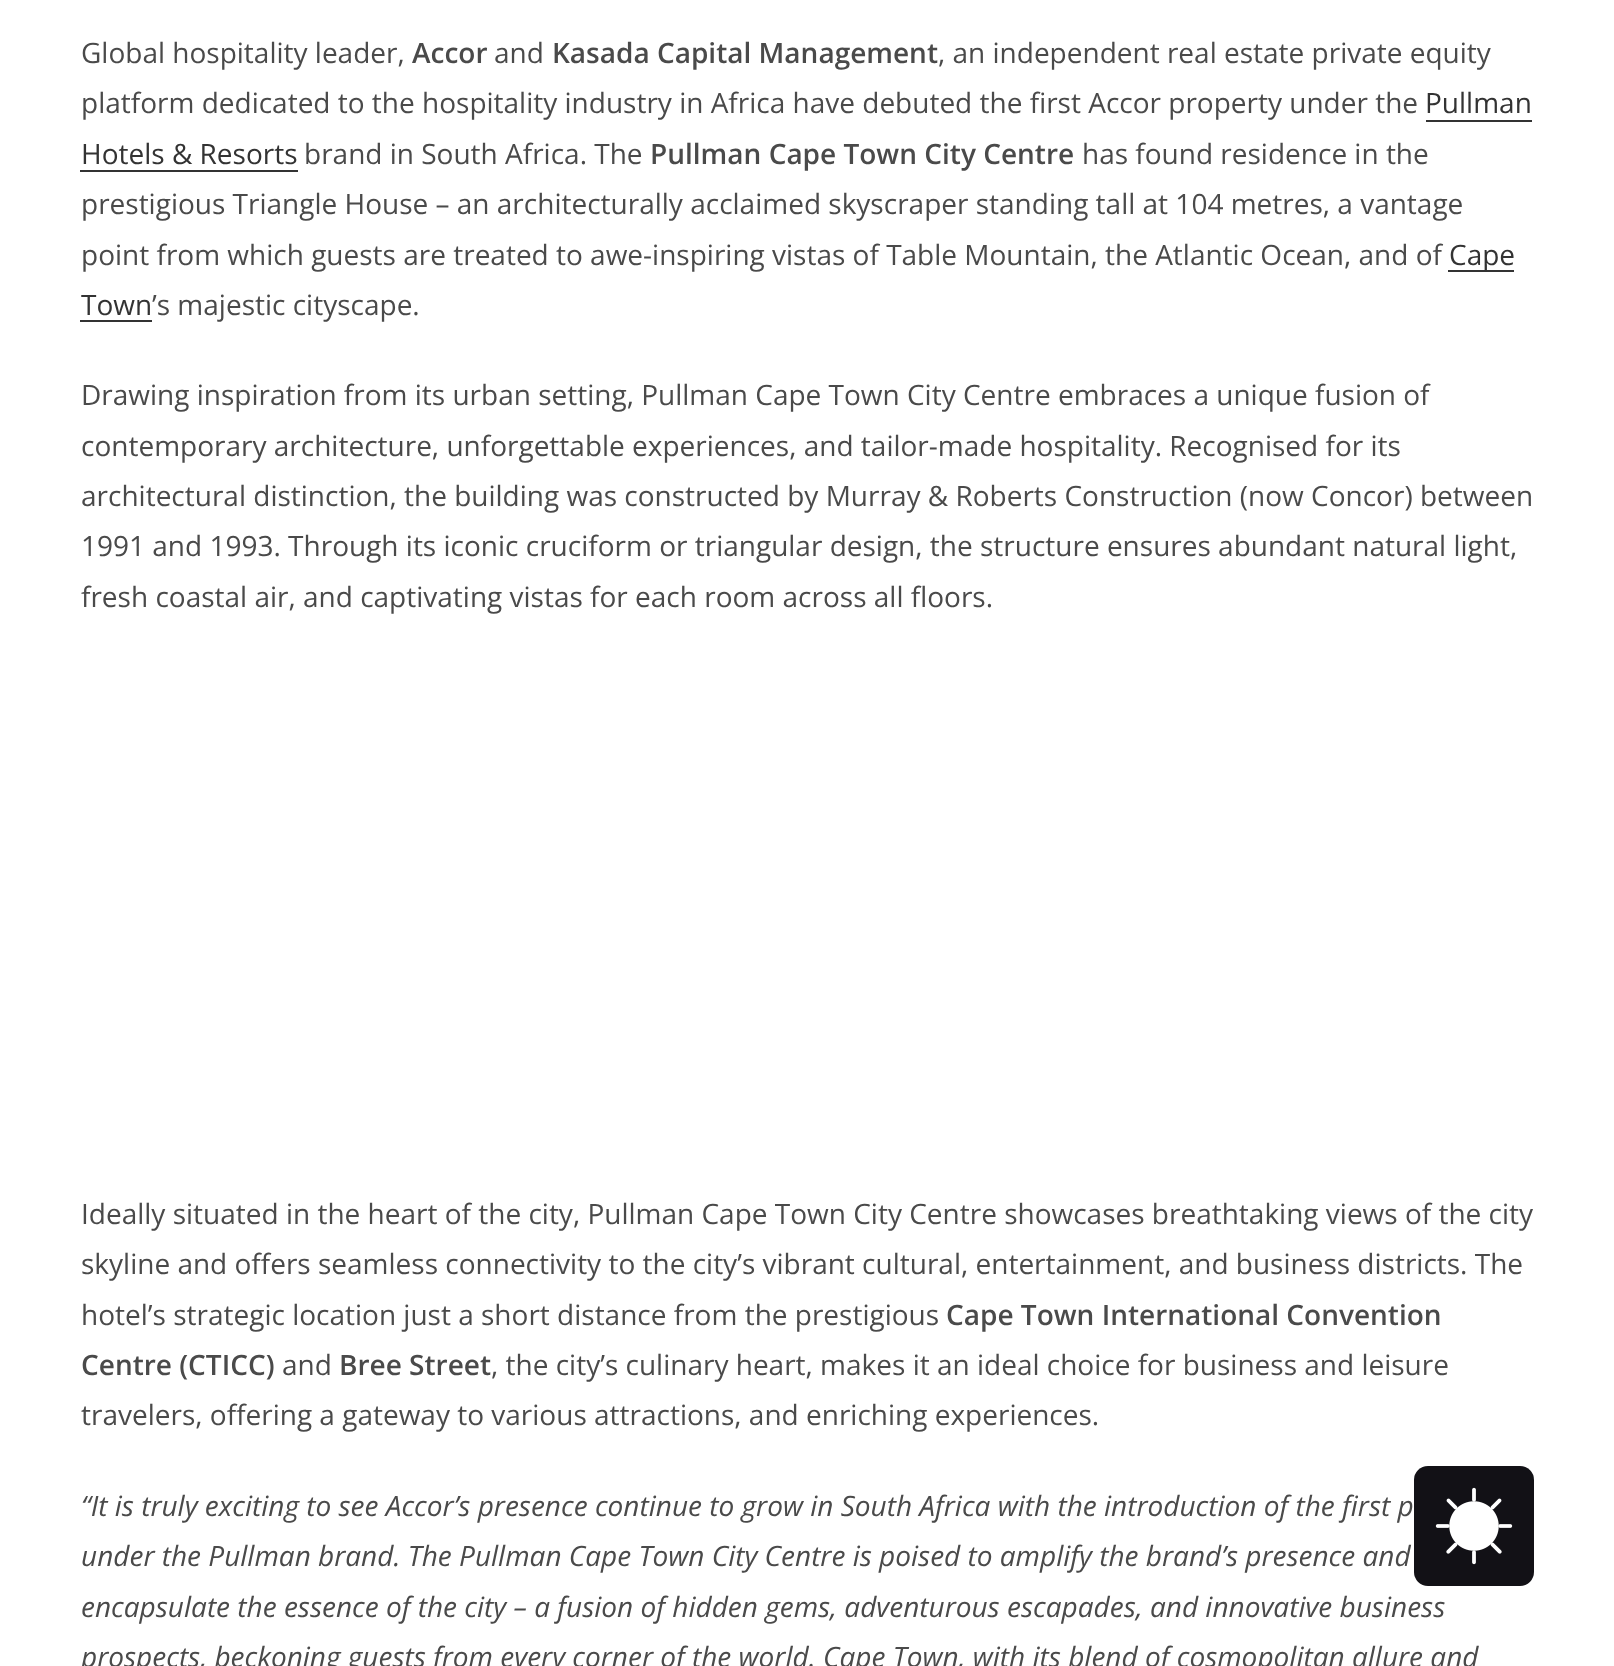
<!DOCTYPE html>
<meta charset="utf-8">
<style>body { margin: 0 } canvas { display: block }</style>
<canvas id="canvas" width="1614" height="1666"></canvas>
<script type="module">
  const canvas = document.getElementById("canvas");
  const ctx = canvas.getContext("2d");
  ctx.miterLimit = 4;
  ctx.fontKerning = "normal";
  async function loadImage(src) {
    const img = new Image();
    img.src = src;
    await img.decode();
    return img;
  }

  ctx.fillStyle = "#ffffff";
  ctx.fillRect(0, 0, 1614, 1666);
  ctx.font = "28px Open Sans";
  ctx.fillStyle = "#4a4a4a";
  ctx.fillText("Global hospitality leader,", 81, 63);
  ctx.font = "600 28px Open Sans";
  ctx.fillText("Accor", 412, 63);
  ctx.font = "28px Open Sans";
  ctx.fillText("and", 494, 63);
  ctx.font = "600 28px Open Sans";
  ctx.fillText("Kasada Capital Management", 552, 63);
  ctx.font = "28px Open Sans";
  ctx.fillText(", an independent real estate private equity", 938, 63);
  ctx.fillText("platform dedicated to the hospitality industry in Africa have debuted the first Accor property under the", 81, 113);
  ctx.fillStyle = "#333333";
  ctx.fillText("Pullman", 1425, 113);
  ctx.fillRect(1426, 120, 106, 2);
  ctx.fillText("Hotels & Resorts", 81, 164);
  ctx.fillRect(80, 170, 218, 2);
  ctx.fillStyle = "#4a4a4a";
  ctx.fillText("brand in South Africa. The", 304, 164);
  ctx.font = "600 28px Open Sans";
  ctx.fillText("Pullman Cape Town City Centre", 650, 164);
  ctx.font = "28px Open Sans";
  ctx.fillText("has found residence in the", 1082, 164);
  ctx.fillText("prestigious Triangle House – an architecturally acclaimed skyscraper standing tall at 104 metres, a vantage", 81, 214);
  ctx.fillText("point from which guests are treated to awe-inspiring vistas of Table Mountain, the Atlantic Ocean, and of", 81, 265);
  ctx.fillStyle = "#333333";
  ctx.fillRect(1448, 270, 66, 2);
  ctx.fillText("Cape", 1449, 265);
  ctx.fillText("Town", 81, 315);
  ctx.fillRect(80, 320, 72, 2);
  ctx.fillStyle = "#4a4a4a";
  ctx.fillText("’s majestic cityscape.", 152, 315);
  ctx.fillText("Drawing inspiration from its urban setting, Pullman Cape Town City Centre embraces a unique fusion of", 81, 405);
  ctx.fillText("contemporary architecture, unforgettable experiences, and tailor-made hospitality. Recognised for its", 81, 456);
  ctx.fillText("architectural distinction, the building was constructed by Murray & Roberts Construction (now Concor) between", 81, 506);
  ctx.fillText("1991 and 1993. Through its iconic cruciform or triangular design, the structure ensures abundant natural light,", 81, 556);
  ctx.fillText("fresh coastal air, and captivating vistas for each room across all floors.", 81, 607);
  ctx.fillText("Ideally situated in the heart of the city, Pullman Cape Town City Centre showcases breathtaking views of the city", 81, 1224);
  ctx.fillText("skyline and offers seamless connectivity to the city’s vibrant cultural, entertainment, and business districts. The", 81, 1274);
  ctx.fillText("hotel’s strategic location just a short distance from the prestigious", 81, 1325);
  ctx.font = "600 28px Open Sans";
  ctx.fillText("Cape Town International Convention", 946, 1325);
  ctx.fillText("Centre (CTICC)", 81, 1375);
  ctx.font = "28px Open Sans";
  ctx.fillText("and", 282, 1375);
  ctx.font = "600 28px Open Sans";
  ctx.fillText("Bree Street", 339, 1375);
  ctx.font = "28px Open Sans";
  ctx.fillText(", the city’s culinary heart, makes it an ideal choice for business and leisure", 491, 1375);
  ctx.fillText("travelers, offering a gateway to various attractions, and enriching experiences.", 81, 1425);
  ctx.font = "italic 28px Open Sans";
  ctx.fillText("“It is truly exciting to see Accor’s presence continue to grow in South Africa with the introduction of the first p", 81, 1516);
  ctx.fillText("under the Pullman brand. The Pullman Cape Town City Centre is poised to amplify the brand’s presence and", 81, 1566);
  ctx.fillText("encapsulate the essence of the city – a fusion of hidden gems, adventurous escapades, and innovative business", 81, 1617);
  ctx.fillText("prospects, beckoning guests from every corner of the world. Cape Town, with its blend of cosmopolitan allure and", 81, 1667);
  ctx.fillStyle = "#121116";
  ctx.beginPath();
  ctx.roundRect(1414, 1466, 120, 120, 14);
  ctx.fill();
  ctx.drawImage(await loadImage("img1.png"), 1435, 1487, 78, 78);
</script>
